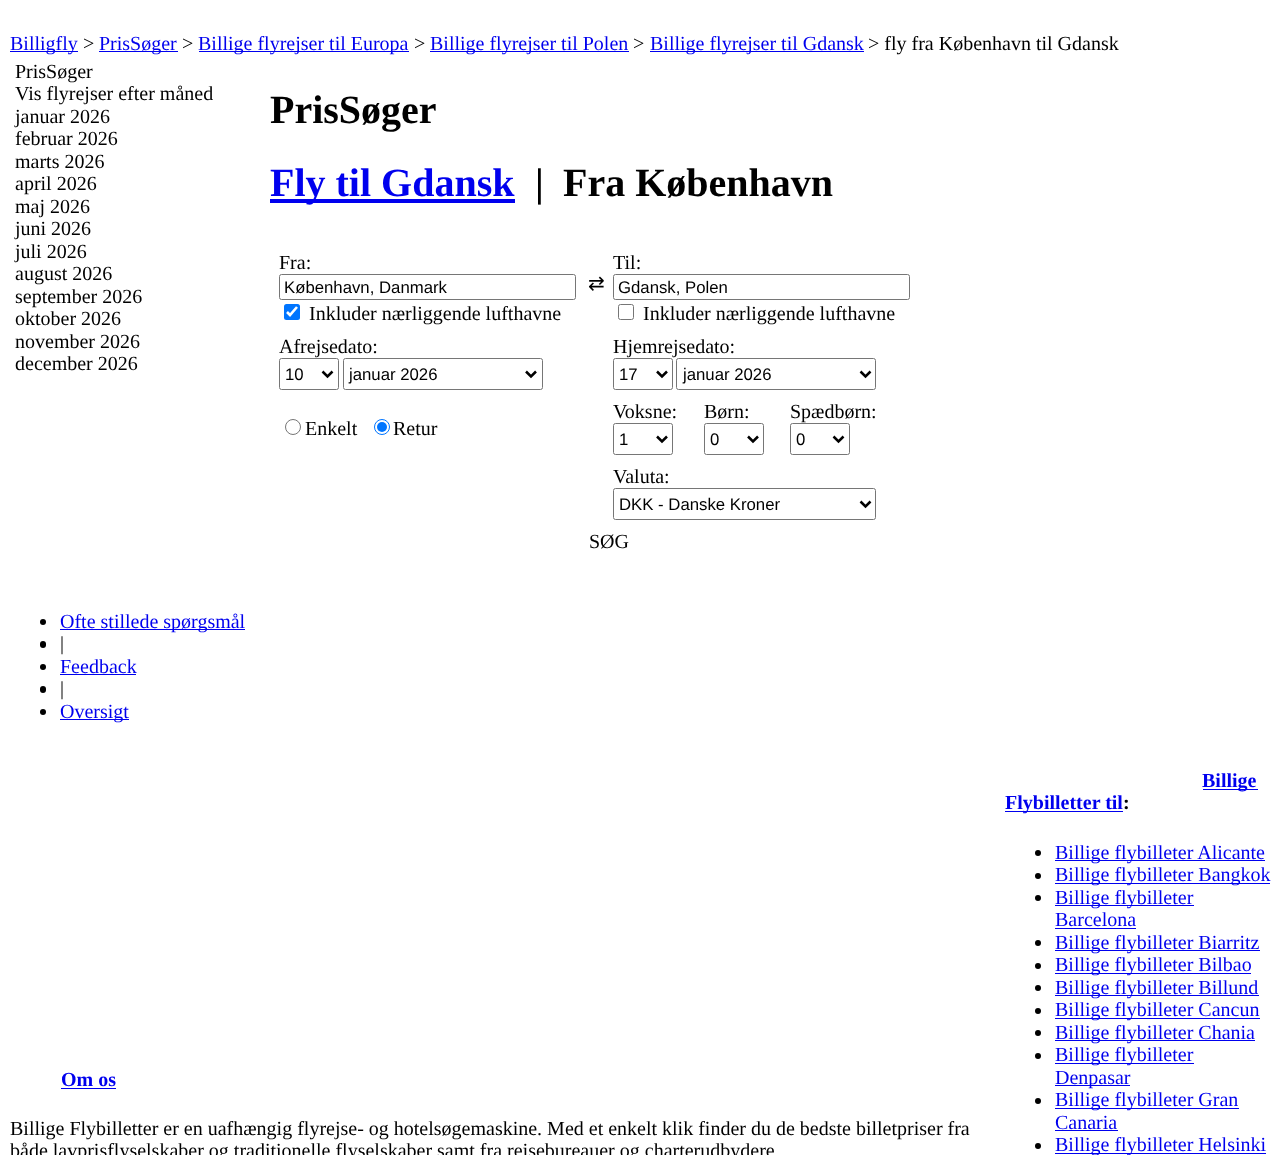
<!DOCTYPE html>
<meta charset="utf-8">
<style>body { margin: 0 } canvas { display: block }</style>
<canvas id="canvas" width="1282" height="1155"></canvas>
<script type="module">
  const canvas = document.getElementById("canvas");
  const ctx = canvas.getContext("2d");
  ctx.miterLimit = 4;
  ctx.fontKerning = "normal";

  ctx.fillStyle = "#ffffff";
  ctx.fillRect(0, 0, 1282, 1155);
  ctx.fillStyle = "#0000ee";
  ctx.fillRect(10, 51, 68, 1);
  ctx.font = "20px Liberation Serif";
  ctx.fillText("Billigfly", 10, 50);
  ctx.fillStyle = "#000000";
  ctx.fillText(">", 83, 50);
  ctx.fillStyle = "#0000ee";
  ctx.fillRect(99, 51, 79, 1);
  ctx.fillText("PrisSøger", 99, 50);
  ctx.fillStyle = "#000000";
  ctx.fillText(">", 182, 50);
  ctx.fillStyle = "#0000ee";
  ctx.fillRect(199, 51, 210, 1);
  ctx.fillText("Billige flyrejser til Europa", 198, 50);
  ctx.fillStyle = "#000000";
  ctx.fillText(">", 414, 50);
  ctx.fillStyle = "#0000ee";
  ctx.fillRect(430, 51, 199, 1);
  ctx.fillText("Billige flyrejser til Polen", 430, 50);
  ctx.fillStyle = "#000000";
  ctx.fillText(">", 633, 50);
  ctx.fillStyle = "#0000ee";
  ctx.fillRect(650, 51, 214, 1);
  ctx.fillText("Billige flyrejser til Gdansk", 650, 50);
  ctx.fillStyle = "#000000";
  ctx.fillText("> fly fra København til Gdansk", 868, 50);
  ctx.fillText("PrisSøger", 15, 78);
  ctx.fillText("Vis flyrejser efter måned", 15, 100);
  ctx.fillText("januar 2026", 15, 123);
  ctx.fillText("februar 2026", 15, 145);
  ctx.fillText("marts 2026", 15, 168);
  ctx.fillText("april 2026", 15, 190);
  ctx.fillText("maj 2026", 15, 213);
  ctx.fillText("juni 2026", 15, 235);
  ctx.fillText("juli 2026", 15, 258);
  ctx.fillText("august 2026", 15, 280);
  ctx.fillText("september 2026", 15, 303);
  ctx.fillText("oktober 2026", 15, 325);
  ctx.fillText("november 2026", 15, 348);
  ctx.fillText("december 2026", 15, 370);
  ctx.font = "bold 40px Liberation Serif";
  ctx.fillText("PrisSøger", 270, 123);
  ctx.fillStyle = "#0000ee";
  ctx.fillRect(270, 199, 245, 4);
  ctx.fillText("Fly til Gdansk", 270, 196);
  ctx.fillStyle = "#000000";
  ctx.fillText("|", 535, 196);
  ctx.fillText("Fra København", 563, 196);
  ctx.font = "20px Liberation Serif";
  ctx.fillText("Fra:", 279, 269);
  ctx.beginPath();
  ctx.roundRect(279.5, 274.5, 296, 25, 2);
  ctx.strokeStyle = "#767676";
  ctx.stroke();
  ctx.font = "16.75px Liberation Sans";
  ctx.fillText("København, Danmark", 284, 293);
  ctx.fillStyle = "#0075ff";
  ctx.beginPath();
  ctx.roundRect(284, 304, 16, 16, 2.5);
  ctx.fill();
  ctx.beginPath();
  ctx.moveTo(287, 312);
  ctx.lineTo(290, 315);
  ctx.lineTo(297, 307);
  ctx.strokeStyle = "#ffffff";
  ctx.lineWidth = 2.6;
  ctx.stroke();
  ctx.font = "20px Liberation Serif";
  ctx.fillStyle = "#000000";
  ctx.fillText("Inkluder nærliggende lufthavne", 309, 320);
  ctx.font = "20px DejaVu Sans";
  ctx.fillText("⇄", 588, 290);
  ctx.font = "20px Liberation Serif";
  ctx.fillText("Til:", 613, 269);
  ctx.beginPath();
  ctx.roundRect(613.5, 274.5, 296, 25, 2);
  ctx.strokeStyle = "#767676";
  ctx.lineWidth = 1;
  ctx.stroke();
  ctx.font = "16.75px Liberation Sans";
  ctx.fillText("Gdansk, Polen", 618, 293);
  ctx.beginPath();
  ctx.roundRect(618.5, 304.5, 15, 15, 2);
  ctx.stroke();
  ctx.font = "20px Liberation Serif";
  ctx.fillText("Inkluder nærliggende lufthavne", 643, 320);
  ctx.fillText("Afrejsedato:", 279, 353);
  ctx.beginPath();
  ctx.roundRect(279.5, 358.5, 59, 31, 2);
  ctx.stroke();
  ctx.beginPath();
  ctx.moveTo(322.5, 371.5);
  ctx.lineTo(327.5, 376.5);
  ctx.lineTo(332.5, 371.5);
  ctx.strokeStyle = "#000000";
  ctx.lineWidth = 2.5;
  ctx.stroke();
  ctx.font = "16.75px Liberation Sans";
  ctx.fillText("10", 285, 380);
  ctx.beginPath();
  ctx.roundRect(343.5, 358.5, 199, 31, 2);
  ctx.strokeStyle = "#767676";
  ctx.lineWidth = 1;
  ctx.stroke();
  ctx.beginPath();
  ctx.moveTo(526, 371.5);
  ctx.lineTo(531, 376.5);
  ctx.lineTo(536, 371.5);
  ctx.strokeStyle = "#000000";
  ctx.lineWidth = 2.5;
  ctx.stroke();
  ctx.fillText("januar 2026", 349, 380);
  ctx.font = "20px Liberation Serif";
  ctx.fillText("Hjemrejsedato:", 613, 353);
  ctx.beginPath();
  ctx.roundRect(613.5, 358.5, 59, 31, 2);
  ctx.strokeStyle = "#767676";
  ctx.lineWidth = 1;
  ctx.stroke();
  ctx.beginPath();
  ctx.moveTo(657, 371.5);
  ctx.lineTo(662, 376.5);
  ctx.lineTo(667, 371.5);
  ctx.strokeStyle = "#000000";
  ctx.lineWidth = 2.5;
  ctx.stroke();
  ctx.font = "16.75px Liberation Sans";
  ctx.fillText("17", 619, 380);
  ctx.beginPath();
  ctx.roundRect(676.5, 358.5, 199, 31, 2);
  ctx.strokeStyle = "#767676";
  ctx.lineWidth = 1;
  ctx.stroke();
  ctx.beginPath();
  ctx.moveTo(860.5, 371.5);
  ctx.lineTo(865.5, 376.5);
  ctx.lineTo(870.5, 371.5);
  ctx.strokeStyle = "#000000";
  ctx.lineWidth = 2.5;
  ctx.stroke();
  ctx.fillText("januar 2026", 683, 380);
  ctx.beginPath();
  ctx.arc(293, 427, 7.5, 0, Math.PI * 2);
  ctx.strokeStyle = "#767676";
  ctx.lineWidth = 1;
  ctx.stroke();
  ctx.font = "20px Liberation Serif";
  ctx.fillText("Enkelt", 305, 435);
  ctx.beginPath();
  ctx.arc(382, 427, 7.5, 0, Math.PI * 2);
  ctx.strokeStyle = "#0075ff";
  ctx.stroke();
  ctx.fillStyle = "#0075ff";
  ctx.beginPath();
  ctx.arc(382, 427, 5, 0, Math.PI * 2);
  ctx.fill();
  ctx.fillStyle = "#000000";
  ctx.fillText("Retur", 393, 435);
  ctx.fillText("Voksne:", 613, 418);
  ctx.beginPath();
  ctx.roundRect(613.5, 423.5, 59, 31, 2);
  ctx.strokeStyle = "#767676";
  ctx.stroke();
  ctx.beginPath();
  ctx.moveTo(657, 436.5);
  ctx.lineTo(662, 441.5);
  ctx.lineTo(667, 436.5);
  ctx.strokeStyle = "#000000";
  ctx.lineWidth = 2.5;
  ctx.stroke();
  ctx.font = "16.75px Liberation Sans";
  ctx.fillText("1", 619, 445);
  ctx.font = "20px Liberation Serif";
  ctx.fillText("Børn:", 704, 418);
  ctx.beginPath();
  ctx.roundRect(704.5, 423.5, 59, 31, 2);
  ctx.strokeStyle = "#767676";
  ctx.lineWidth = 1;
  ctx.stroke();
  ctx.beginPath();
  ctx.moveTo(748, 436.5);
  ctx.lineTo(753, 441.5);
  ctx.lineTo(758, 436.5);
  ctx.strokeStyle = "#000000";
  ctx.lineWidth = 2.5;
  ctx.stroke();
  ctx.font = "16.75px Liberation Sans";
  ctx.fillText("0", 710, 445);
  ctx.font = "20px Liberation Serif";
  ctx.fillText("Spædbørn:", 790, 418);
  ctx.beginPath();
  ctx.roundRect(790.5, 423.5, 59, 31, 2);
  ctx.strokeStyle = "#767676";
  ctx.lineWidth = 1;
  ctx.stroke();
  ctx.beginPath();
  ctx.moveTo(833.5, 436.5);
  ctx.lineTo(838.5, 441.5);
  ctx.lineTo(843.5, 436.5);
  ctx.strokeStyle = "#000000";
  ctx.lineWidth = 2.5;
  ctx.stroke();
  ctx.font = "16.75px Liberation Sans";
  ctx.fillText("0", 796, 445);
  ctx.font = "20px Liberation Serif";
  ctx.fillText("Valuta:", 613, 483);
  ctx.beginPath();
  ctx.roundRect(613.5, 488.5, 262, 31, 2);
  ctx.strokeStyle = "#767676";
  ctx.lineWidth = 1;
  ctx.stroke();
  ctx.beginPath();
  ctx.moveTo(860.5, 501.5);
  ctx.lineTo(865.5, 506.5);
  ctx.lineTo(870.5, 501.5);
  ctx.strokeStyle = "#000000";
  ctx.lineWidth = 2.5;
  ctx.stroke();
  ctx.font = "16.75px Liberation Sans";
  ctx.fillText("DKK - Danske Kroner", 619, 510);
  ctx.font = "20px Liberation Serif";
  ctx.fillText("SØG", 589, 548);
  ctx.beginPath();
  ctx.arc(43, 622, 3, 0, Math.PI * 2);
  ctx.fill();
  ctx.fillStyle = "#0000ee";
  ctx.fillRect(60, 629, 185, 1);
  ctx.fillText("Ofte stillede spørgsmål", 60, 628);
  ctx.fillStyle = "#000000";
  ctx.beginPath();
  ctx.roundRect(40, 641, 6, 7, 3);
  ctx.fill();
  ctx.fillText("|", 60, 650);
  ctx.beginPath();
  ctx.arc(43, 667, 3, 0, Math.PI * 2);
  ctx.fill();
  ctx.fillStyle = "#0000ee";
  ctx.fillText("Feedback", 60, 673);
  ctx.fillRect(60, 674, 76, 1);
  ctx.fillStyle = "#000000";
  ctx.beginPath();
  ctx.roundRect(40, 686, 6, 7, 3);
  ctx.fill();
  ctx.fillText("|", 60, 695);
  ctx.beginPath();
  ctx.arc(43, 712, 3, 0, Math.PI * 2);
  ctx.fill();
  ctx.fillStyle = "#0000ee";
  ctx.fillRect(60, 719, 69, 1);
  ctx.fillText("Oversigt", 60, 718);
  ctx.font = "bold 20px Liberation Serif";
  ctx.fillText("Om os", 61, 1086);
  ctx.fillRect(61, 1088, 55, 1);
  ctx.font = "20px Liberation Serif";
  ctx.fillStyle = "#000000";
  ctx.fillText("Billige Flybilletter er en uafhængig flyrejse- og hotelsøgemaskine. Med et enkelt klik finder du de bedste billetpriser fra", 10, 1135);
  ctx.fillText("både lavprisflyselskaber og traditionelle flyselskaber samt fra rejsebureauer og charterudbydere", 10, 1157);
  ctx.fillStyle = "#0000ee";
  ctx.fillRect(1203, 789, 55, 1);
  ctx.font = "bold 20px Liberation Serif";
  ctx.fillText("Billige", 1202, 787);
  ctx.fillRect(1005, 811, 118, 1);
  ctx.fillText("Flybilletter til", 1005, 809);
  ctx.fillStyle = "#000000";
  ctx.fillText(":", 1123, 809);
  ctx.beginPath();
  ctx.arc(1038, 853, 3, 0, Math.PI * 2);
  ctx.fill();
  ctx.fillStyle = "#0000ee";
  ctx.fillRect(1055, 860, 210, 1);
  ctx.font = "20px Liberation Serif";
  ctx.fillText("Billige flybilleter Alicante", 1055, 859);
  ctx.fillStyle = "#000000";
  ctx.beginPath();
  ctx.arc(1038, 876, 3, 0, Math.PI * 2);
  ctx.fill();
  ctx.fillStyle = "#0000ee";
  ctx.fillRect(1055, 883, 215, 1);
  ctx.fillText("Billige flybilleter Bangkok", 1055, 881);
  ctx.fillStyle = "#000000";
  ctx.beginPath();
  ctx.arc(1038, 898, 3, 0, Math.PI * 2);
  ctx.fill();
  ctx.fillStyle = "#0000ee";
  ctx.fillRect(1055, 905, 139, 1);
  ctx.fillText("Billige flybilleter", 1055, 904);
  ctx.fillText("Barcelona", 1055, 926);
  ctx.fillRect(1055, 928, 81, 1);
  ctx.fillStyle = "#000000";
  ctx.beginPath();
  ctx.arc(1038, 943, 3, 0, Math.PI * 2);
  ctx.fill();
  ctx.fillStyle = "#0000ee";
  ctx.fillRect(1055, 950, 205, 1);
  ctx.fillText("Billige flybilleter Biarritz", 1055, 949);
  ctx.fillStyle = "#000000";
  ctx.beginPath();
  ctx.arc(1038, 966, 3, 0, Math.PI * 2);
  ctx.fill();
  ctx.fillStyle = "#0000ee";
  ctx.fillRect(1055, 973, 196, 1);
  ctx.fillText("Billige flybilleter Bilbao", 1055, 971);
  ctx.fillStyle = "#000000";
  ctx.beginPath();
  ctx.arc(1038, 988, 3, 0, Math.PI * 2);
  ctx.fill();
  ctx.fillStyle = "#0000ee";
  ctx.fillRect(1055, 995, 204, 1);
  ctx.fillText("Billige flybilleter Billund", 1055, 994);
  ctx.fillStyle = "#000000";
  ctx.beginPath();
  ctx.arc(1038, 1011, 3, 0, Math.PI * 2);
  ctx.fill();
  ctx.fillStyle = "#0000ee";
  ctx.fillRect(1055, 1018, 205, 1);
  ctx.fillText("Billige flybilleter Cancun", 1055, 1016);
  ctx.fillStyle = "#000000";
  ctx.beginPath();
  ctx.arc(1038, 1033, 3, 0, Math.PI * 2);
  ctx.fill();
  ctx.fillStyle = "#0000ee";
  ctx.fillRect(1055, 1040, 200, 1);
  ctx.fillText("Billige flybilleter Chania", 1055, 1039);
  ctx.fillStyle = "#000000";
  ctx.beginPath();
  ctx.arc(1038, 1056, 3, 0, Math.PI * 2);
  ctx.fill();
  ctx.fillStyle = "#0000ee";
  ctx.fillRect(1055, 1063, 139, 1);
  ctx.fillText("Billige flybilleter", 1055, 1061);
  ctx.fillRect(1055, 1085, 75, 1);
  ctx.fillText("Denpasar", 1055, 1084);
  ctx.fillStyle = "#000000";
  ctx.beginPath();
  ctx.arc(1038, 1101, 3, 0, Math.PI * 2);
  ctx.fill();
  ctx.fillStyle = "#0000ee";
  ctx.fillRect(1055, 1108, 184, 1);
  ctx.fillText("Billige flybilleter Gran", 1055, 1106);
  ctx.fillText("Canaria", 1055, 1129);
  ctx.fillRect(1055, 1130, 63, 1);
  ctx.fillStyle = "#000000";
  ctx.beginPath();
  ctx.arc(1038, 1146, 3, 0, Math.PI * 2);
  ctx.fill();
  ctx.fillStyle = "#0000ee";
  ctx.fillRect(1055, 1153, 211, 1);
  ctx.fillText("Billige flybilleter Helsinki", 1055, 1151);
</script>
